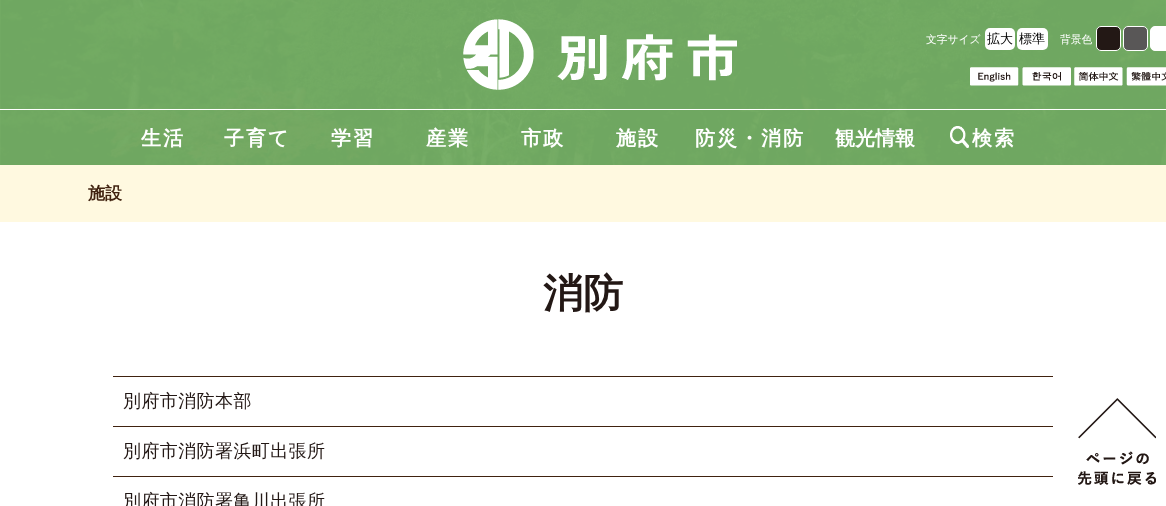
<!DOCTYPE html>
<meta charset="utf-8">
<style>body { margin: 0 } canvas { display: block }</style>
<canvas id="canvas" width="1166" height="506"></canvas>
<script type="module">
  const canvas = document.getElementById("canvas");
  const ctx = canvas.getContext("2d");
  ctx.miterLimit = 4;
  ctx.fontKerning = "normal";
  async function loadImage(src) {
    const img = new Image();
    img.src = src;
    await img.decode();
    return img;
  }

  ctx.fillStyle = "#ffffff";
  ctx.fillRect(0, 0, 1166, 506);
  ctx.drawImage(await loadImage("img7.png"), 0, 0, 1166, 165);
  ctx.fillStyle = "rgba(117, 176, 102, 0.95)";
  ctx.fillRect(0, 0, 1166, 165);
  ctx.drawImage(await loadImage("img1.png"), 463, 19, 274, 71);
  ctx.fillStyle = "#ffffff";
  ctx.fillRect(0, 109, 1166, 1);
  ctx.font = "500 10.75px WenQuanYi Zen Hei";
  ctx.fillText("文字サイズ", 926, 43);
  ctx.beginPath();
  ctx.roundRect(985, 28, 30, 22, 5);
  ctx.fill();
  ctx.font = "500 13px WenQuanYi Zen Hei";
  ctx.fillStyle = "#000000";
  ctx.fillText("拡大", 987, 43);
  ctx.fillStyle = "#ffffff";
  ctx.beginPath();
  ctx.roundRect(1017, 28, 31, 22, 5);
  ctx.fill();
  ctx.fillStyle = "#000000";
  ctx.fillText("標準", 1019, 43);
  ctx.font = "500 10.75px WenQuanYi Zen Hei";
  ctx.fillStyle = "#ffffff";
  ctx.fillText("背景色", 1060, 43);
  ctx.fillStyle = "#231815";
  ctx.beginPath();
  ctx.roundRect(1096.5, 26.5, 24, 24, 4.5);
  ctx.fill();
  ctx.strokeStyle = "#ffffff";
  ctx.stroke();
  ctx.fillStyle = "#595757";
  ctx.beginPath();
  ctx.roundRect(1123.5, 26.5, 24, 24, 4.5);
  ctx.fill();
  ctx.stroke();
  ctx.fillStyle = "#ffffff";
  ctx.beginPath();
  ctx.roundRect(1150.5, 26.5, 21, 24, 4.5);
  ctx.fill();
  ctx.stroke();
  ctx.drawImage(await loadImage("img2.png"), 970, 67, 49, 19);
  ctx.drawImage(await loadImage("img3.png"), 1022, 67, 49, 19);
  ctx.drawImage(await loadImage("img4.png"), 1074, 67, 49, 19);
  ctx.drawImage(await loadImage("img5.png"), 1126, 67, 40, 19);
  ctx.letterSpacing = "2px";
  ctx.font = "bold 20px WenQuanYi Zen Hei";
  ctx.fillText("生活", 141, 145);
  ctx.fillText("子育て", 224, 145);
  ctx.fillText("学習", 331, 145);
  ctx.fillText("産業", 426, 145);
  ctx.fillText("市政", 521, 145);
  ctx.fillText("施設", 616, 145);
  ctx.fillText("防災・消防", 695, 145);
  ctx.letterSpacing = "0px";
  ctx.fillText("観光情報", 835, 145);
  ctx.drawImage(await loadImage("img6.png"), 950, 126, 19, 22);
  ctx.letterSpacing = "2px";
  ctx.fillText("検索", 972, 145);
  ctx.fillStyle = "#fff9e0";
  ctx.fillRect(0, 165, 1166, 57);
  ctx.letterSpacing = "0px";
  ctx.font = "bold 17px WenQuanYi Zen Hei";
  ctx.fillStyle = "#40220f";
  ctx.fillText("施設", 88, 199);
  ctx.font = "bold 40px WenQuanYi Zen Hei";
  ctx.fillStyle = "#231815";
  ctx.fillText("消防", 543, 307);
  ctx.fillStyle = "#40220f";
  ctx.fillRect(113, 376, 940, 1);
  ctx.letterSpacing = "0.4px";
  ctx.font = "500 18px WenQuanYi Zen Hei";
  ctx.fillStyle = "#231815";
  ctx.fillText("別府市消防本部", 123, 407);
  ctx.fillStyle = "#40220f";
  ctx.fillRect(113, 426, 940, 1);
  ctx.fillStyle = "#231815";
  ctx.fillText("別府市消防署浜町出張所", 123, 457);
  ctx.fillStyle = "#40220f";
  ctx.fillRect(113, 476, 940, 1);
  ctx.fillStyle = "#231815";
  ctx.fillText("別府市消防署亀川出張所", 123, 507);
  ctx.drawImage(await loadImage("img8.png"), 1078, 398, 78, 87);
</script>
